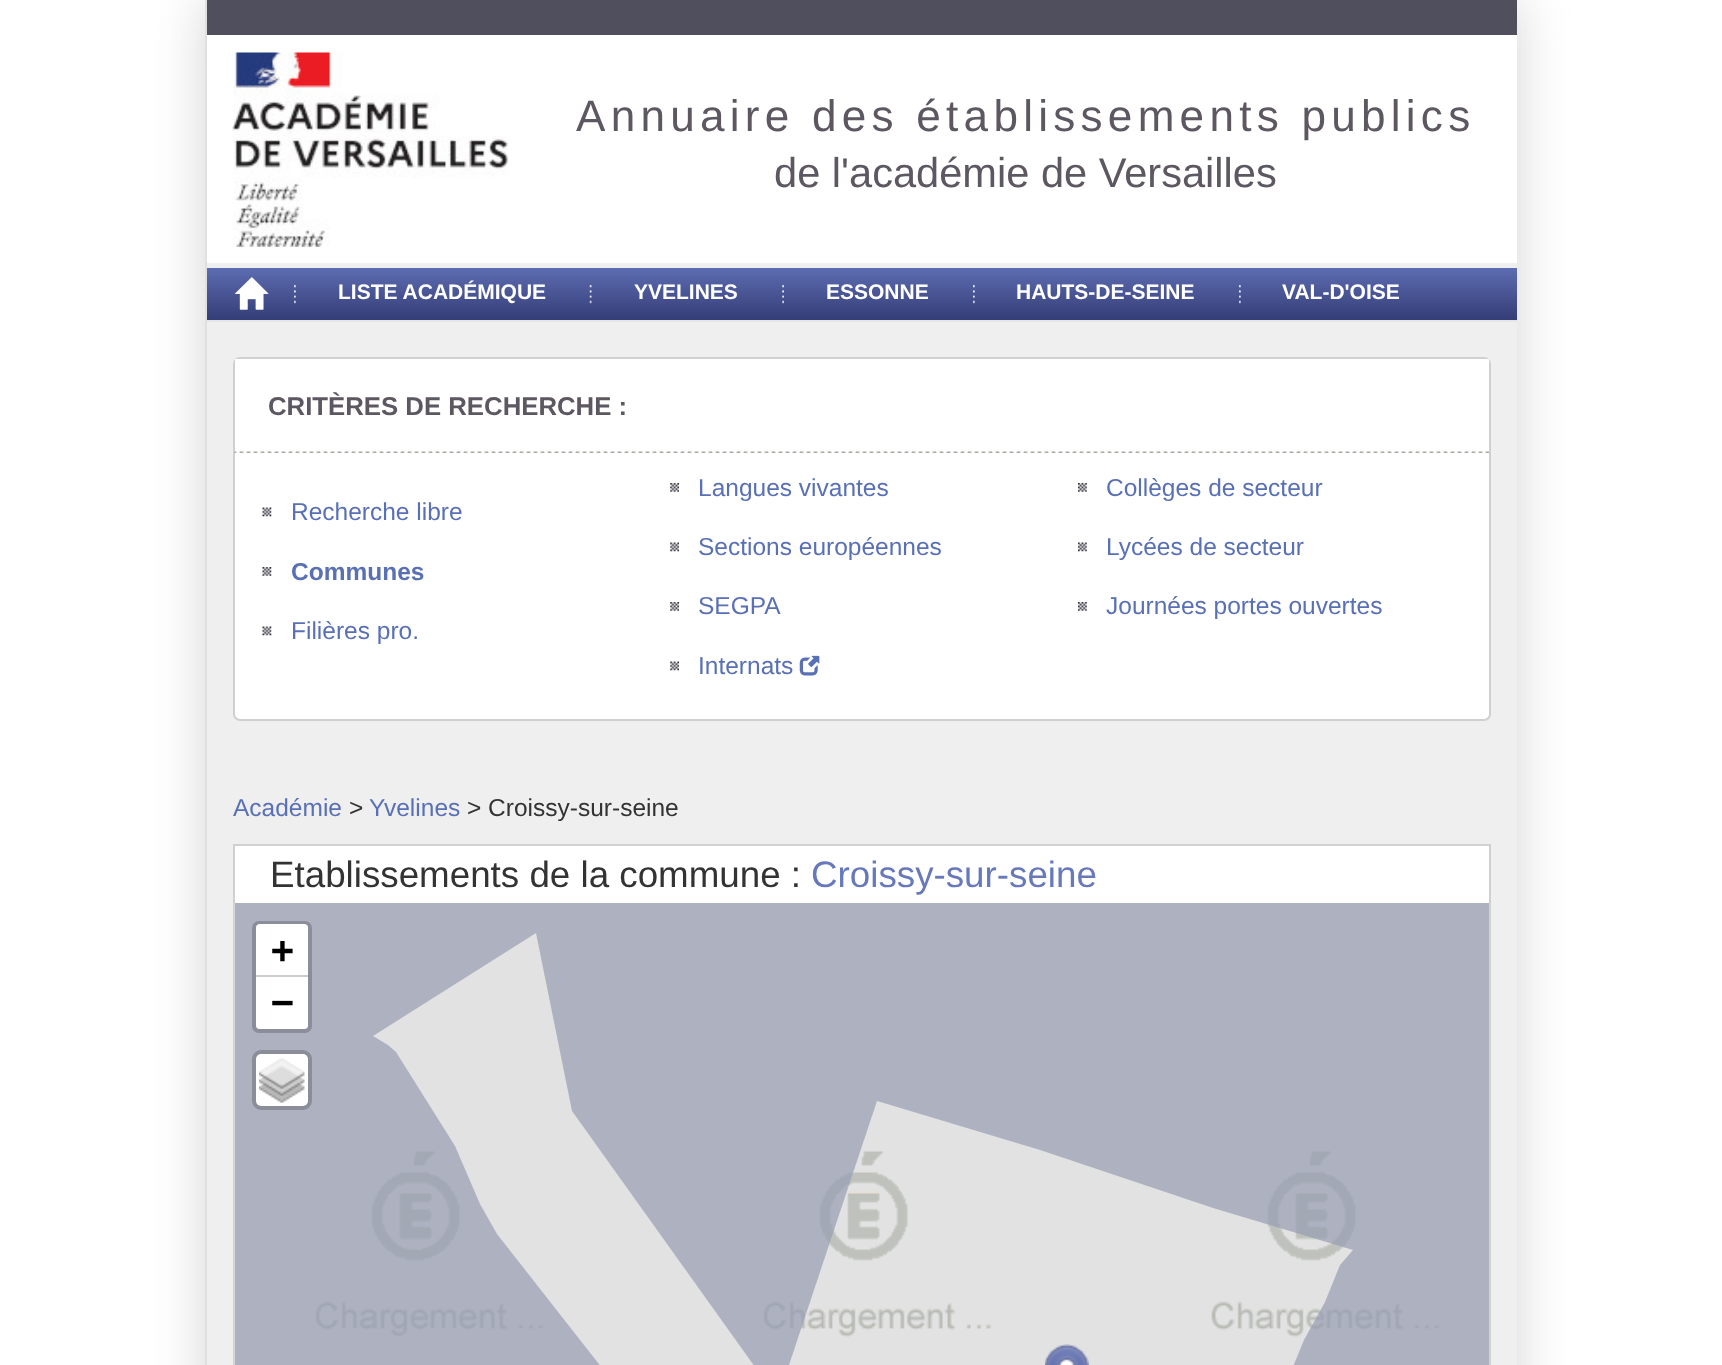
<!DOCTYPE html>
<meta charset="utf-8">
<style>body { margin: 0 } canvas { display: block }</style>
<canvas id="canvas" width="1722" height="1365"></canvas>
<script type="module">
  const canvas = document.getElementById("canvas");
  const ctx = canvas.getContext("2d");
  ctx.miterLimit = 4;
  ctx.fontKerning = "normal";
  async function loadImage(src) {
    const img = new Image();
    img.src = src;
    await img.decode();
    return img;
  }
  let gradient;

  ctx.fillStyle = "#ffffff";
  ctx.fillRect(0, 0, 1722, 1365);
  ctx.fillStyle = "#d5d5d5";
  ctx.filter = "blur(26px)";
  ctx.beginPath();
  ctx.rect(205, 0, 1312, 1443);
  ctx.fill();
  ctx.filter = "none";
  ctx.fillStyle = "#efefef";
  ctx.fillRect(207, 263, 1310, 1102);
  ctx.fillStyle = "#e0e0e1";
  ctx.fillRect(205, 0, 2, 1365);
  ctx.fillStyle = "#e5e5e5";
  ctx.fillRect(207, 320, 1310, 2);
  ctx.fillStyle = "#504f5d";
  ctx.fillRect(207, 0, 1310, 35);
  ctx.fillStyle = "#ffffff";
  ctx.fillRect(207, 35, 1310, 228);
  ctx.drawImage(await loadImage("img1.png"), 232, 52, 276, 195);
  ctx.letterSpacing = "5.25px";
  ctx.font = "44.1px Liberation Sans";
  ctx.fillStyle = "#5c5761";
  ctx.fillText("Annuaire des établissements publics", 576, 131);
  ctx.letterSpacing = "0px";
  ctx.font = "41.6px Liberation Sans";
  ctx.fillText("de l'académie de Versailles", 774, 187);
  gradient = ctx.createLinearGradient(862, 268, 862, 320);
  gradient.addColorStop(0, "#5d6cb1");
  gradient.addColorStop(1, "#343d76");
  ctx.fillStyle = gradient;
  ctx.fillRect(207, 268, 1310, 52);
  ctx.drawImage(await loadImage("img2.png"), 235, 277, 34, 33);
  ctx.drawImage(await loadImage("img3.png"), 294, 285, 2, 19);
  ctx.font = "bold 21px Liberation Sans";
  ctx.fillStyle = "#ffffff";
  ctx.fillText("LISTE ACADÉMIQUE", 338, 299);
  ctx.drawImage(await loadImage("img4.png"), 589, 285, 3, 19);
  ctx.fillText("YVELINES", 634, 299);
  ctx.drawImage(await loadImage("img5.png"), 782, 285, 2, 19);
  ctx.fillText("ESSONNE", 826, 299);
  ctx.drawImage(await loadImage("img3.png"), 973, 285, 2, 19);
  ctx.fillText("HAUTS-DE-SEINE", 1016, 299);
  ctx.drawImage(await loadImage("img3.png"), 1239, 285, 2, 19);
  ctx.fillText("VAL-D'OISE", 1282, 299);
  ctx.beginPath();
  ctx.roundRect(234, 358, 1256, 362, 6);
  ctx.fill();
  ctx.strokeStyle = "#d0d0d0";
  ctx.lineWidth = 2;
  ctx.stroke();
  ctx.fillRect(235, 359, 1254, 4);
  ctx.drawImage(await loadImage("img6.png"), 234, 451, 1255, 3);
  ctx.font = "bold 25.75px Liberation Sans";
  ctx.fillStyle = "#5c5761";
  ctx.fillText("CRITÈRES DE RECHERCHE :", 268, 415);
  ctx.fillStyle = "#ffffff";
  ctx.fillRect(235, 453, 1254, 1);
  ctx.drawImage(await loadImage("img7.png"), 670, 483, 9, 9);
  ctx.font = "24.5px Liberation Sans";
  ctx.fillStyle = "#5970b5";
  ctx.fillText("Langues vivantes", 698, 496);
  ctx.drawImage(await loadImage("img8.png"), 1078, 483, 9, 9);
  ctx.fillText("Collèges de secteur", 1106, 496);
  ctx.drawImage(await loadImage("img9.png"), 262, 507, 10, 10);
  ctx.fillText("Recherche libre", 291, 520);
  ctx.drawImage(await loadImage("img10.png"), 670, 542, 9, 10);
  ctx.fillText("Sections européennes", 698, 555);
  ctx.drawImage(await loadImage("img11.png"), 1078, 542, 9, 10);
  ctx.fillText("Lycées de secteur", 1106, 555);
  ctx.drawImage(await loadImage("img12.png"), 262, 567, 10, 9);
  ctx.font = "bold 24.5px Liberation Sans";
  ctx.fillText("Communes", 291, 580);
  ctx.drawImage(await loadImage("img7.png"), 670, 602, 9, 9);
  ctx.font = "24.5px Liberation Sans";
  ctx.fillText("SEGPA", 698, 614);
  ctx.drawImage(await loadImage("img8.png"), 1078, 602, 9, 9);
  ctx.fillText("Journées portes ouvertes", 1106, 614);
  ctx.drawImage(await loadImage("img9.png"), 262, 626, 10, 10);
  ctx.fillText("Filières pro.", 291, 639);
  ctx.drawImage(await loadImage("img10.png"), 670, 661, 9, 10);
  ctx.fillText("Internats", 698, 674);
  ctx.drawImage(await loadImage("img13.png"), 799, 655, 21, 21);
  ctx.fillText("Académie", 233, 816);
  ctx.fillStyle = "#333333";
  ctx.fillText(">", 349, 816);
  ctx.fillStyle = "#5970b5";
  ctx.fillText("Yvelines", 369, 816);
  ctx.fillStyle = "#333333";
  ctx.fillText("> Croissy-sur-seine", 467, 816);
  ctx.fillStyle = "#ffffff";
  ctx.fillRect(235, 846, 1254, 57);
  ctx.strokeRect(234, 845, 1256, 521);
  ctx.font = "36.75px Liberation Sans";
  ctx.fillStyle = "#333333";
  ctx.fillText("Etablissements de la commune :", 270, 887);
  ctx.fillStyle = "#6779bb";
  ctx.fillText("Croissy-sur-seine", 811, 887);
  ctx.drawImage(await loadImage("img14.png"), 234, 903, 1256, 462);
  ctx.beginPath();
  ctx.roundRect(254, 923, 56, 108, 5);
  ctx.strokeStyle = "#8b8e9a";
  ctx.lineWidth = 4;
  ctx.stroke();
  ctx.fillStyle = "#ffffff";
  ctx.beginPath();
  ctx.roundRect(256, 924, 52, 53, [4, 4, 0, 0]);
  ctx.fill();
  ctx.fillStyle = "#cccccc";
  ctx.fillRect(256, 975, 52, 2);
  ctx.font = "bold 38px DejaVu Sans Mono";
  ctx.fillStyle = "#000000";
  ctx.fillText("+", 271, 963);
  ctx.fillStyle = "#ffffff";
  ctx.beginPath();
  ctx.roundRect(256, 977, 52, 52, [0, 0, 4, 4]);
  ctx.fill();
  ctx.fillStyle = "#000000";
  ctx.fillText("−", 271, 1015);
  ctx.fillStyle = "#ffffff";
  ctx.beginPath();
  ctx.roundRect(256, 1054, 52, 52, 5);
  ctx.fill();
  ctx.beginPath();
  ctx.roundRect(254, 1052, 56, 56, 7);
  ctx.strokeStyle = "rgba(0, 0, 0, 0.2)";
  ctx.stroke();
  ctx.drawImage(await loadImage("img15.png"), 259, 1058, 46, 45);
  ctx.drawImage(await loadImage("img16.png"), 1045, 1344, 44, 21);
</script>
